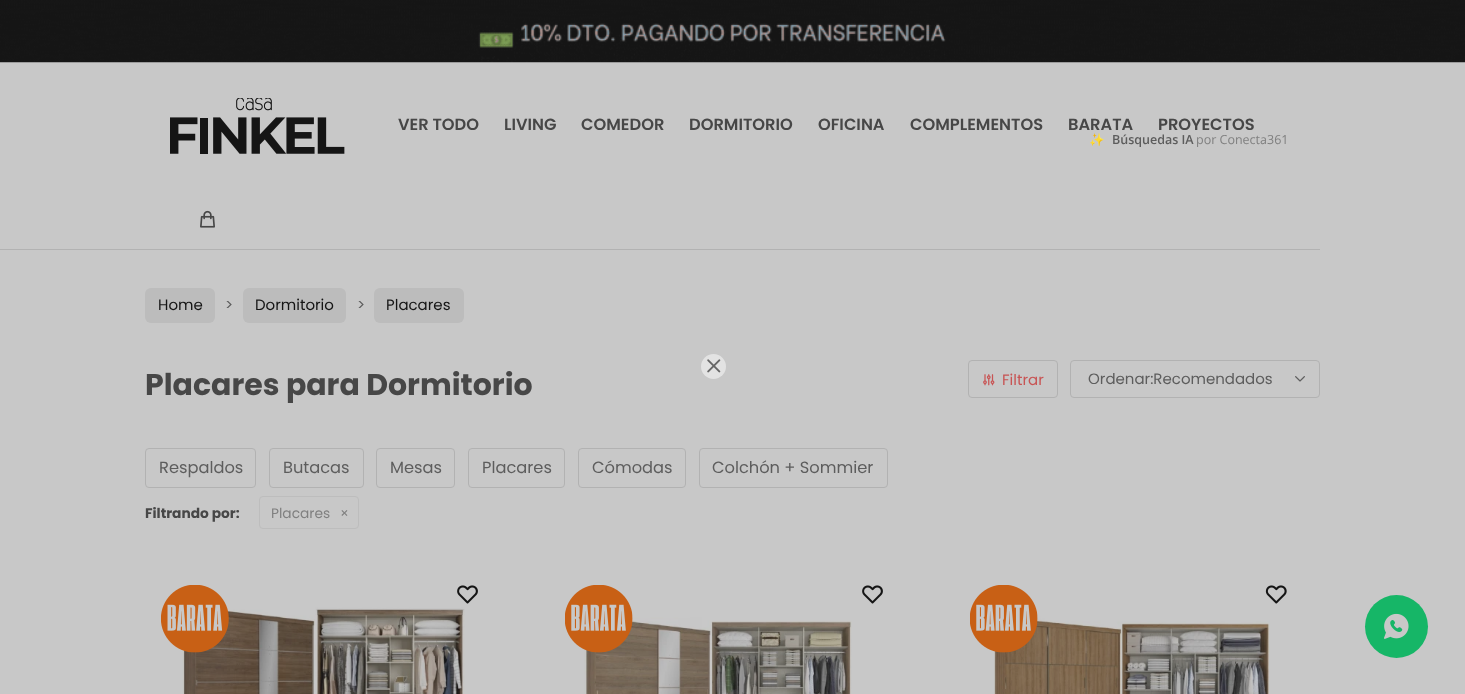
<!DOCTYPE html>
<meta charset="utf-8">
<style>body { margin: 0 } canvas { display: block }</style>
<canvas id="canvas" width="1465" height="694"></canvas>
<script type="module">
  const canvas = document.getElementById("canvas");
  const ctx = canvas.getContext("2d");
  ctx.miterLimit = 4;
  ctx.fontKerning = "normal";
  async function loadImage(src) {
    const img = new Image();
    img.src = src;
    await img.decode();
    return img;
  }

  ctx.fillStyle = "#c8c8c8";
  ctx.fillRect(0, 0, 1465, 694);
  ctx.drawImage(await loadImage("img1.png"), 0, 0, 1465, 63);
  ctx.drawImage(await loadImage("img2.png"), 170, 98, 175, 56);
  ctx.font = "600 16.25px Poppins";
  ctx.fillStyle = "#474747";
  ctx.fillText("VER TODO", 398, 130);
  ctx.fillText("LIVING", 504, 130);
  ctx.fillText("COMEDOR", 581, 130);
  ctx.fillText("DORMITORIO", 689, 130);
  ctx.fillText("OFICINA", 818, 130);
  ctx.fillText("COMPLEMENTOS", 910, 130);
  ctx.fillText("BARATA", 1068, 130);
  ctx.fillText("PROYECTOS", 1158, 130);
  ctx.font = "12.5px Noto Color Emoji";
  ctx.fillStyle = "#808080";
  ctx.fillText("✨", 1089, 144);
  ctx.font = "600 12.5px Open Sans";
  ctx.fillStyle = "#5d5d5d";
  ctx.fillText("Búsquedas IA", 1112, 144);
  ctx.font = "12.5px Open Sans";
  ctx.fillStyle = "#808080";
  ctx.fillText("por Conecta361", 1196, 144);
  ctx.drawImage(await loadImage("img3.png"), 200, 210, 15, 18);
  ctx.fillStyle = "#b2b2b2";
  ctx.fillRect(0, 249, 1320, 1);
  ctx.fillStyle = "#bcbcbc";
  ctx.beginPath();
  ctx.roundRect(145, 288, 70, 35, 6);
  ctx.fill();
  ctx.font = "15px Poppins";
  ctx.fillStyle = "#151515";
  ctx.fillText("Home", 158, 310);
  ctx.fillStyle = "#5d5d5d";
  ctx.fillText(">", 225, 310);
  ctx.fillStyle = "#bcbcbc";
  ctx.beginPath();
  ctx.roundRect(243, 288, 103, 35, 6);
  ctx.fill();
  ctx.fillStyle = "#151515";
  ctx.fillText("Dormitorio", 255, 310);
  ctx.fillStyle = "#5d5d5d";
  ctx.fillText(">", 357, 310);
  ctx.fillStyle = "#bcbcbc";
  ctx.beginPath();
  ctx.roundRect(374, 288, 90, 35, 6);
  ctx.fill();
  ctx.fillStyle = "#151515";
  ctx.fillText("Placares", 386, 310);
  ctx.font = "bold 30px Poppins";
  ctx.fillStyle = "#474747";
  ctx.fillText("Placares para Dormitorio", 145, 395);
  ctx.beginPath();
  ctx.roundRect(968.5, 360.5, 89, 37, 3.5);
  ctx.strokeStyle = "#b2b2b2";
  ctx.stroke();
  ctx.drawImage(await loadImage("img4.png"), 983, 374, 12, 12);
  ctx.font = "15px Poppins";
  ctx.fillStyle = "#c85454";
  ctx.fillText("Filtrar", 1002, 385);
  ctx.drawImage(await loadImage("img5.png"), 1295, 376, 10, 6);
  ctx.beginPath();
  ctx.roundRect(1070.5, 360.5, 249, 37, 3.5);
  ctx.stroke();
  ctx.fillStyle = "#5d5d5d";
  ctx.fillText("Ordenar:Recomendados", 1088, 384);
  ctx.beginPath();
  ctx.roundRect(145.5, 448.5, 110, 39, 3.5);
  ctx.stroke();
  ctx.font = "16.25px Poppins";
  ctx.fillText("Respaldos", 159, 473);
  ctx.beginPath();
  ctx.roundRect(269.5, 448.5, 94, 39, 3.5);
  ctx.stroke();
  ctx.fillText("Butacas", 283, 473);
  ctx.beginPath();
  ctx.roundRect(376.5, 448.5, 78, 39, 3.5);
  ctx.stroke();
  ctx.fillText("Mesas", 390, 473);
  ctx.beginPath();
  ctx.roundRect(468.5, 448.5, 96, 39, 3.5);
  ctx.stroke();
  ctx.fillText("Placares", 482, 473);
  ctx.beginPath();
  ctx.roundRect(578.5, 448.5, 107, 39, 3.5);
  ctx.stroke();
  ctx.fillText("Cómodas", 592, 473);
  ctx.beginPath();
  ctx.roundRect(699.5, 448.5, 188, 39, 3.5);
  ctx.stroke();
  ctx.fillText("Colchón + Sommier", 712, 473);
  ctx.font = "bold 13.75px Poppins";
  ctx.fillStyle = "#474747";
  ctx.fillText("Filtrando por:", 145, 518);
  ctx.beginPath();
  ctx.roundRect(259.5, 496.5, 99, 32, 3.5);
  ctx.strokeStyle = "#bdbdbd";
  ctx.stroke();
  ctx.font = "13.75px Poppins";
  ctx.fillStyle = "#808080";
  ctx.fillText("Placares", 271, 518);
  ctx.fillText("×", 340, 518);
  ctx.drawImage(await loadImage("img8.png"), 182, 607, 283, 87);
  ctx.drawImage(await loadImage("img6.png"), 161, 585, 68, 68);
  ctx.drawImage(await loadImage("img7.png"), 457, 585, 21, 19);
  ctx.drawImage(await loadImage("img10.png"), 584, 617, 268, 77);
  ctx.drawImage(await loadImage("img9.png"), 565, 585, 68, 68);
  ctx.drawImage(await loadImage("img7.png"), 862, 585, 21, 19);
  ctx.drawImage(await loadImage("img13.png"), 994, 616, 276, 78);
  ctx.drawImage(await loadImage("img11.png"), 970, 585, 68, 68);
  ctx.drawImage(await loadImage("img12.png"), 1265, 585, 22, 19);
  ctx.fillStyle = "#e3e3e3";
  ctx.beginPath();
  ctx.arc(713.5, 366.5, 12.5, 0, Math.PI * 2);
  ctx.fill();
  ctx.drawImage(await loadImage("img14.png"), 707, 359, 14, 14);
  ctx.fillStyle = "#16b667";
  ctx.beginPath();
  ctx.arc(1396.5, 626.5, 31.5, 0, Math.PI * 2);
  ctx.fill();
  ctx.drawImage(await loadImage("img15.png"), 1384, 613, 25, 26);
</script>
